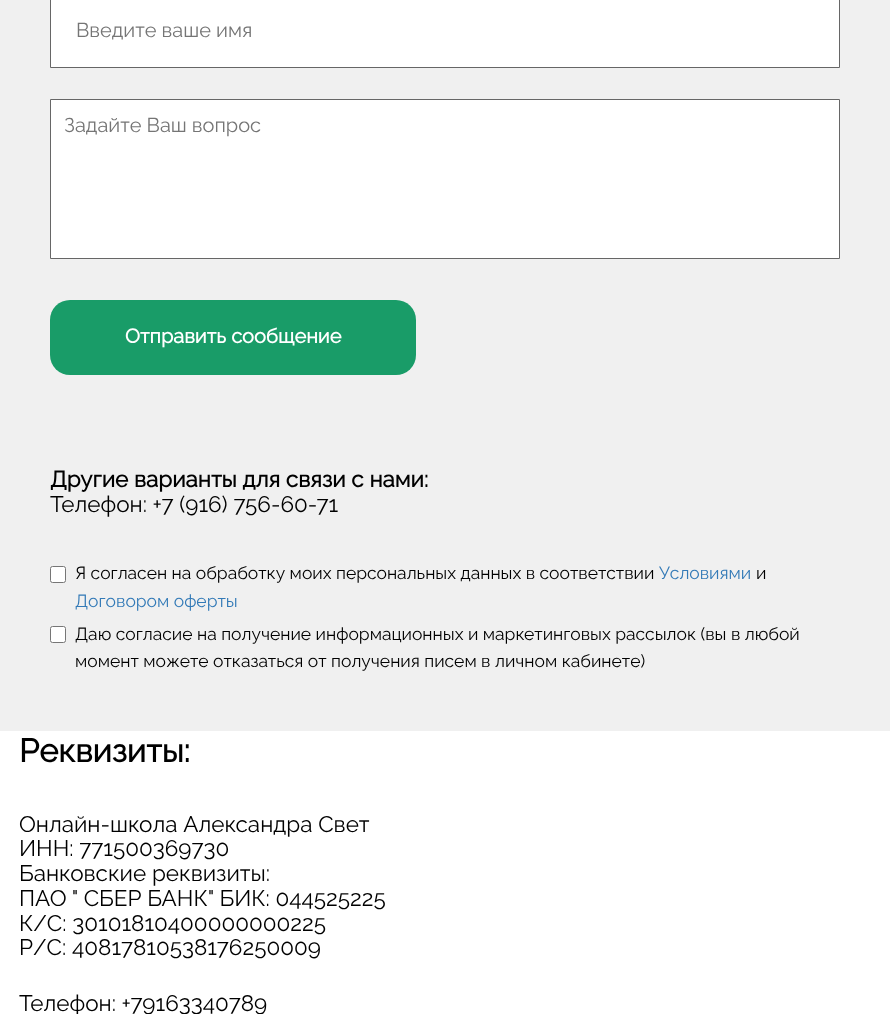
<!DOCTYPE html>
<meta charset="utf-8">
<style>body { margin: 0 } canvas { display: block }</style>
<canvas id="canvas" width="890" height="1014"></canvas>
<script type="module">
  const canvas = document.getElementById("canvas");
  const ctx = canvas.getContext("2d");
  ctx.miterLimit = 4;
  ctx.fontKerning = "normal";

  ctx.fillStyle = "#ffffff";
  ctx.fillRect(0, 0, 890, 1014);
  ctx.fillStyle = "#f0f0f0";
  ctx.fillRect(0, 0, 890, 731);
  ctx.fillStyle = "#ffffff";
  ctx.beginPath();
  ctx.rect(50.5, -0.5, 789, 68);
  ctx.fill();
  ctx.strokeStyle = "#666666";
  ctx.stroke();
  ctx.font = "100 20px Raleway";
  ctx.fillStyle = "#757575";
  ctx.fillText("Введите ваше имя", 76, 37);
  ctx.fillStyle = "#ffffff";
  ctx.beginPath();
  ctx.rect(50.5, 99.5, 789, 159);
  ctx.fill();
  ctx.stroke();
  ctx.fillStyle = "#757575";
  ctx.fillText("Задайте Ваш вопрос", 64, 132);
  ctx.fillStyle = "#199c68";
  ctx.beginPath();
  ctx.roundRect(50, 300, 366, 75, 20);
  ctx.fill();
  ctx.font = "bold 20px Raleway";
  ctx.fillStyle = "#ffffff";
  ctx.fillText("Отправить сообщение", 125, 343);
  ctx.font = "bold 22.5px Raleway";
  ctx.fillStyle = "#000000";
  ctx.fillText("Другие варианты для связи с нами:", 50, 487);
  ctx.font = "100 22.5px Raleway";
  ctx.fillText("Телефон: +7 (916) 756-60-71", 50, 512);
  ctx.fillStyle = "#ffffff";
  ctx.beginPath();
  ctx.roundRect(50.5, 566.5, 15, 16, 2);
  ctx.fill();
  ctx.strokeStyle = "#767676";
  ctx.stroke();
  ctx.font = "100 17.5px Raleway";
  ctx.fillStyle = "#000000";
  ctx.fillText("Я согласен на обработку моих персональных данных в соответствии", 75, 579);
  ctx.fillStyle = "#337ab7";
  ctx.fillText("Условиями", 659, 579);
  ctx.fillStyle = "#000000";
  ctx.fillText("и", 756, 579);
  ctx.fillStyle = "#337ab7";
  ctx.fillText("Договором оферты", 75, 607);
  ctx.fillStyle = "#ffffff";
  ctx.beginPath();
  ctx.roundRect(50.5, 626.5, 15, 16, 2);
  ctx.fill();
  ctx.stroke();
  ctx.fillStyle = "#000000";
  ctx.fillText("Даю согласие на получение информационных и маркетинговых рассылок (вы в любой", 75, 640);
  ctx.fillText("момент можете отказаться от получения писем в личном кабинете)", 75, 667);
  ctx.font = "bold 32.5px Raleway";
  ctx.fillText("Реквизиты:", 19, 762);
  ctx.font = "100 22.5px Raleway";
  ctx.fillText("Онлайн-школа Александра Свет", 19, 832);
  ctx.fillText("ИНН: 771500369730", 19, 856);
  ctx.fillText("Банковские реквизиты:", 19, 881);
  ctx.fillText("ПАО \" СБЕР БАНК\" БИК: 044525225", 19, 906);
  ctx.fillText("К/С: 30101810400000000225", 19, 931);
  ctx.fillText("Р/С: 40817810538176250009", 19, 955);
  ctx.fillText("Телефон: +79163340789", 19, 1011);
</script>
